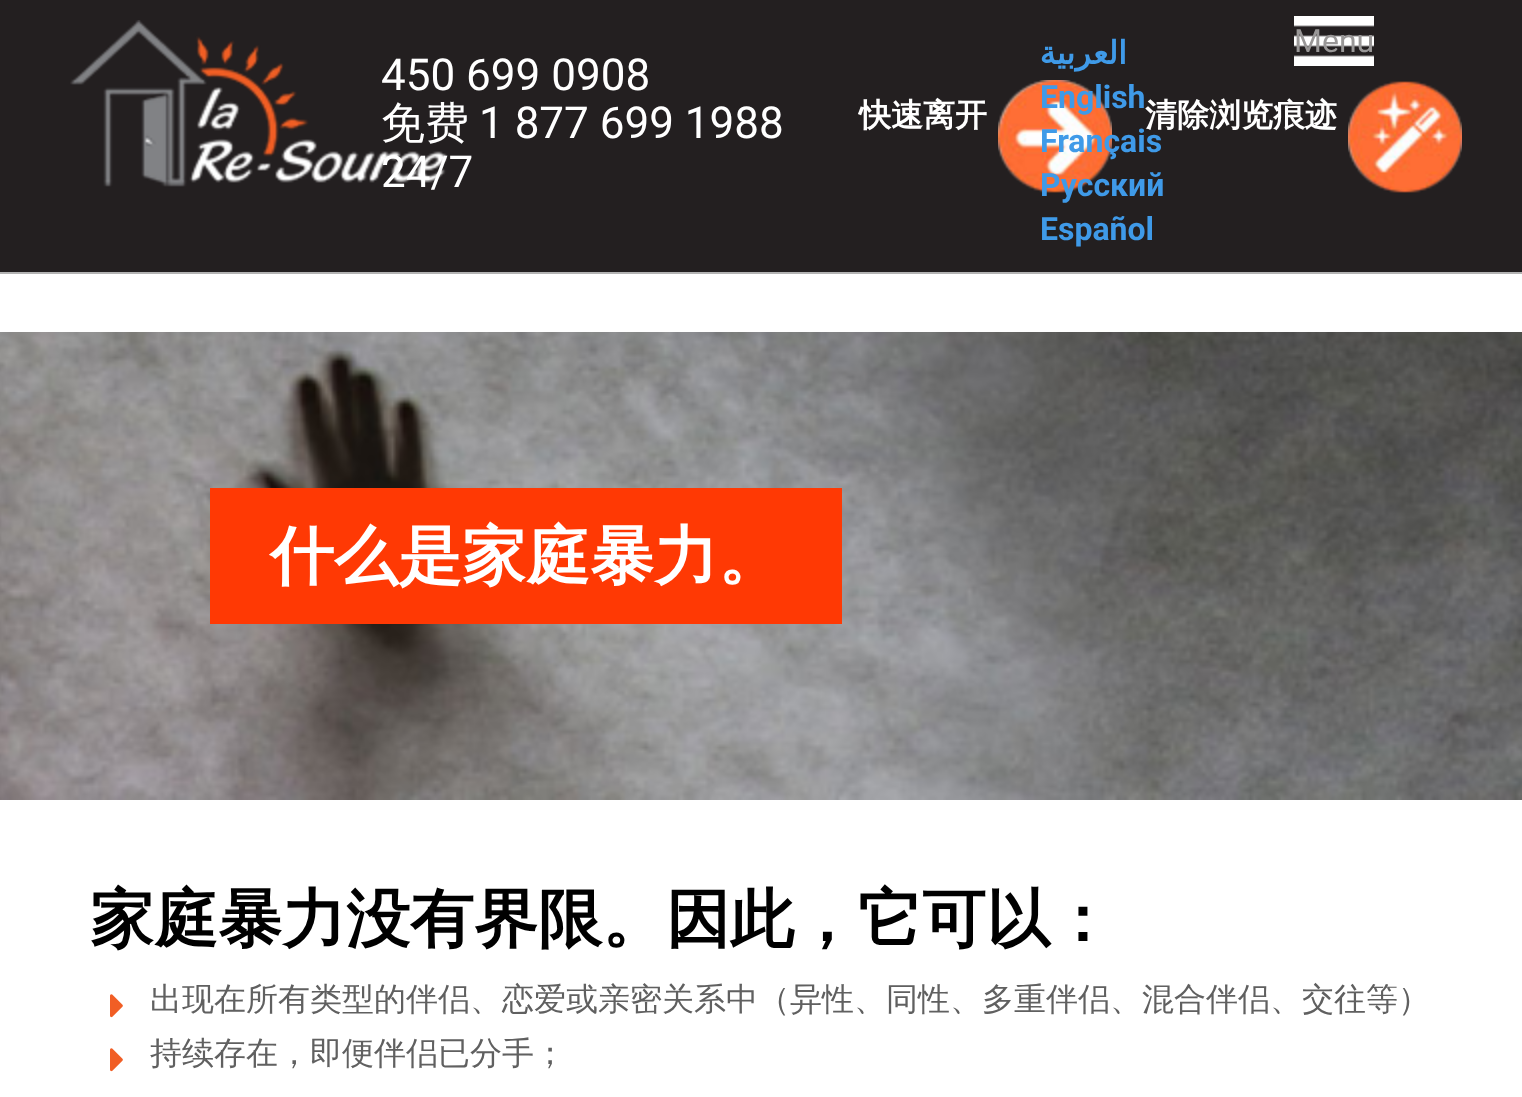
<!DOCTYPE html>
<meta charset="utf-8">
<style>body { margin: 0 } canvas { display: block }</style>
<canvas id="canvas" width="1522" height="1097"></canvas>
<script type="module">
  const canvas = document.getElementById("canvas");
  const ctx = canvas.getContext("2d");
  ctx.miterLimit = 4;
  ctx.fontKerning = "normal";
  async function loadImage(src) {
    const img = new Image();
    img.src = src;
    await img.decode();
    return img;
  }

  ctx.fillStyle = "#ffffff";
  ctx.fillRect(0, 0, 1522, 1097);
  ctx.fillStyle = "#b3b3b3";
  ctx.fillRect(0, 272, 1522, 2);
  ctx.drawImage(await loadImage("img1.png"), 0, 223, 1522, 49);
  ctx.fillStyle = "#231f20";
  ctx.fillRect(0, 0, 1522, 223);
  ctx.drawImage(await loadImage("img2.png"), 70, 20, 377, 167);
  ctx.font = "44px Roboto";
  ctx.fillStyle = "#ffffff";
  ctx.fillText("450 699 0908", 381, 90);
  ctx.font = "500 44px WenQuanYi Zen Hei";
  ctx.fillText("免费", 381, 138);
  ctx.font = "44px Roboto";
  ctx.fillText("1 877 699 1988", 479, 138);
  ctx.fillText("24/7", 381, 187);
  ctx.direction = "rtl";
  ctx.font = "bold 32px DejaVu Sans";
  ctx.fillStyle = "#3f9ae8";
  ctx.fillText("العربية", 1127, 64);
  ctx.drawImage(await loadImage("img4.png"), 998, 80, 114, 113);
  ctx.direction = "ltr";
  ctx.font = "bold 32px Roboto";
  ctx.fillText("English", 1040, 108);
  ctx.fillText("Français", 1040, 152);
  ctx.fillText("Русский", 1040, 196);
  ctx.fillText("Español", 1040, 240);
  ctx.drawImage(await loadImage("img3.png"), 1294, 16, 80, 50);
  ctx.font = "32px Roboto";
  ctx.fillStyle = "#999797";
  ctx.fillText("Menu", 1294, 52);
  ctx.font = "bold 32px WenQuanYi Zen Hei";
  ctx.fillStyle = "#ffffff";
  ctx.fillText("快速离开", 859, 126);
  ctx.fillText("清除浏览痕迹", 1145, 126);
  ctx.drawImage(await loadImage("img5.png"), 1348, 81, 114, 112);
  ctx.drawImage(await loadImage("img6.png"), 0, 332, 1522, 468);
  ctx.fillStyle = "#ff3904";
  ctx.fillRect(210, 488, 632, 136);
  ctx.font = "bold 64px WenQuanYi Zen Hei";
  ctx.fillStyle = "#ffffff";
  ctx.fillText("什么是家庭暴力。", 270, 578);
  ctx.fillStyle = "#000000";
  ctx.fillText("家庭暴力没有界限。因此，它可以：", 90, 941);
  ctx.drawImage(await loadImage("img7.png"), 110, 994, 13, 24);
  ctx.font = "500 32px WenQuanYi Zen Hei";
  ctx.fillStyle = "#606060";
  ctx.fillText("出现在所有类型的伴侣、恋爱或亲密关系中（异性、同性、多重伴侣、混合伴侣、交往等）", 150, 1010);
  ctx.drawImage(await loadImage("img7.png"), 110, 1048, 13, 24);
  ctx.fillText("持续存在，即便伴侣已分手；", 150, 1064);
</script>
